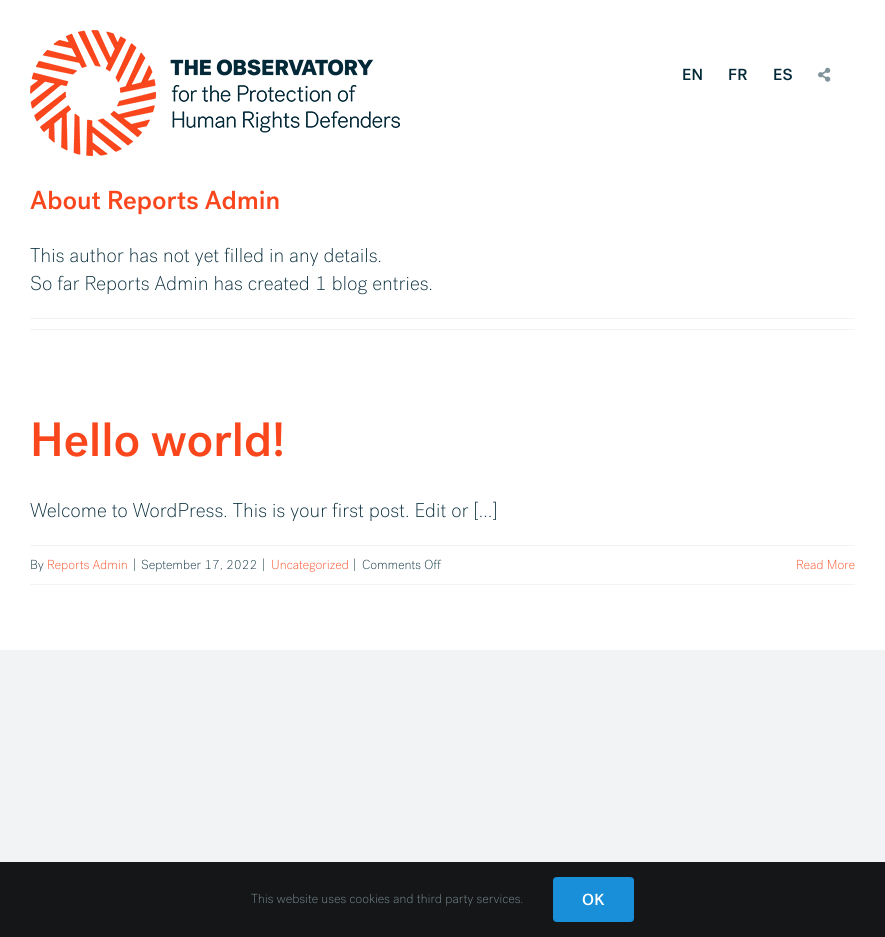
<!DOCTYPE html>
<meta charset="utf-8">
<style>body { margin: 0 } canvas { display: block }</style>
<canvas id="canvas" width="885" height="937"></canvas>
<script type="module">
  const canvas = document.getElementById("canvas");
  const ctx = canvas.getContext("2d");
  ctx.miterLimit = 4;
  ctx.fontKerning = "normal";
  async function loadImage(src) {
    const img = new Image();
    img.src = src;
    await img.decode();
    return img;
  }

  ctx.fillStyle = "#f2f3f5";
  ctx.fillRect(0, 0, 885, 937);
  ctx.fillStyle = "#ffffff";
  ctx.fillRect(0, 0, 885, 650);
  ctx.drawImage(await loadImage("img1.png"), 30, 30, 370, 126);
  ctx.drawImage(await loadImage("img2.png"), 683, 68, 19, 12);
  ctx.drawImage(await loadImage("img3.png"), 729, 68, 18, 12);
  ctx.drawImage(await loadImage("img4.png"), 774, 68, 18, 13);
  ctx.drawImage(await loadImage("img5.png"), 818, 67, 13, 15);
  ctx.drawImage(await loadImage("img6.png"), 30, 190, 71, 20);
  ctx.drawImage(await loadImage("img7.png"), 109, 190, 170, 25);
  ctx.drawImage(await loadImage("img8.png"), 30, 247, 351, 19);
  ctx.drawImage(await loadImage("img9.png"), 31, 275, 401, 20);
  ctx.fillStyle = "#f2f3f5";
  ctx.fillRect(30, 318, 825, 1);
  ctx.fillRect(30, 329, 825, 1);
  ctx.drawImage(await loadImage("img10.png"), 33, 422, 249, 35);
  ctx.drawImage(await loadImage("img11.png"), 30, 502, 439, 19);
  ctx.drawImage(await loadImage("img12.png"), 475, 501, 21, 19);
  ctx.fillRect(30, 545, 825, 1);
  ctx.fillRect(30, 584, 825, 1);
  ctx.drawImage(await loadImage("img13.png"), 31, 559, 13, 13);
  ctx.drawImage(await loadImage("img14.png"), 48, 559, 79, 13);
  ctx.fillStyle = "#032938";
  ctx.beginPath();
  ctx.moveTo(134.5, 558.5);
  ctx.lineTo(135, 558.5);
  ctx.lineTo(135, 571);
  ctx.lineTo(134.5, 571);
  ctx.closePath();
  ctx.fill();
  ctx.drawImage(await loadImage("img15.png"), 141, 559, 115, 13);
  ctx.beginPath();
  ctx.moveTo(263.5, 558.5);
  ctx.lineTo(264, 558.5);
  ctx.lineTo(264, 571);
  ctx.lineTo(263.5, 571);
  ctx.closePath();
  ctx.fill();
  ctx.drawImage(await loadImage("img16.png"), 272, 559, 76, 13);
  ctx.beginPath();
  ctx.moveTo(354.5, 558.5);
  ctx.lineTo(355, 558.5);
  ctx.lineTo(355, 571);
  ctx.lineTo(354.5, 571);
  ctx.closePath();
  ctx.fill();
  ctx.drawImage(await loadImage("img17.png"), 362, 559, 80, 11);
  ctx.drawImage(await loadImage("img18.png"), 797, 559, 58, 11);
  ctx.fillStyle = "#141617";
  ctx.fillRect(0, 862, 885, 75);
  ctx.drawImage(await loadImage("img19.png"), 251, 893, 272, 13);
  ctx.fillStyle = "#198fd9";
  ctx.beginPath();
  ctx.roundRect(553, 877, 81, 45, 4);
  ctx.fill();
  ctx.drawImage(await loadImage("img20.png"), 582, 893, 23, 13);
</script>
